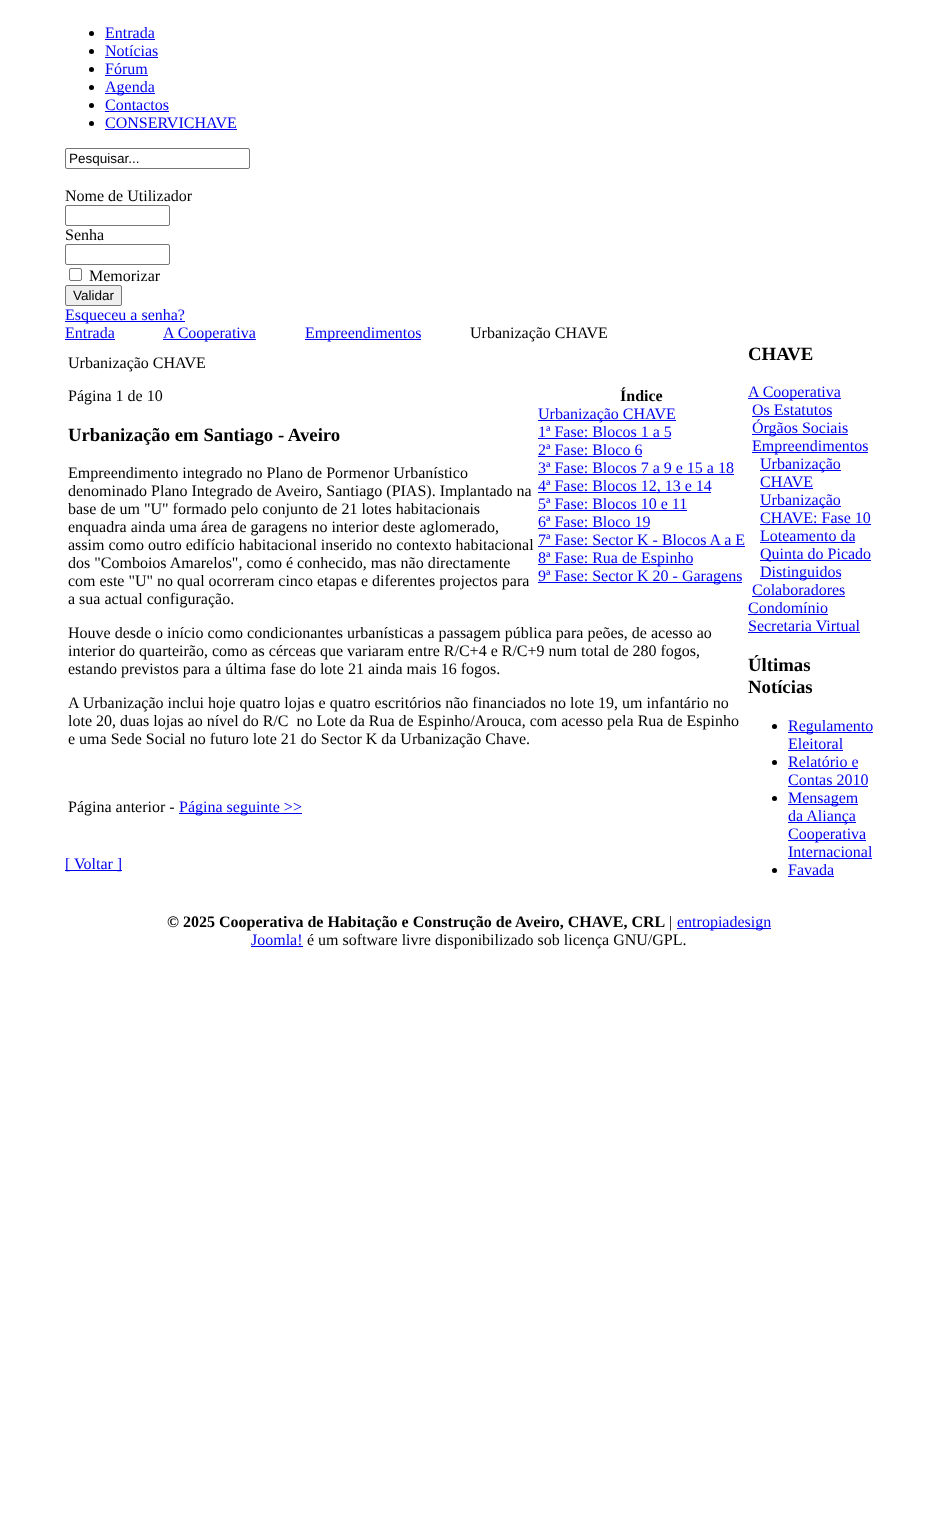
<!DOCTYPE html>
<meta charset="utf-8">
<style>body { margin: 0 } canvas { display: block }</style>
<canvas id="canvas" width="938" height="1519"></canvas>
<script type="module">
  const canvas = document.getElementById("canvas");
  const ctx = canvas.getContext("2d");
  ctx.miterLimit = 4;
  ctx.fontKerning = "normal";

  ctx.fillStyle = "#ffffff";
  ctx.fillRect(0, 0, 938, 1519);
  ctx.fillStyle = "#000000";
  ctx.beginPath();
  ctx.arc(91.5, 33.5, 2.5, 0, Math.PI * 2);
  ctx.fill();
  ctx.font = "16px Liberation Serif";
  ctx.fillStyle = "#0000ee";
  ctx.fillText("Entrada", 105, 38);
  ctx.fillRect(105, 39, 50, 1);
  ctx.fillStyle = "#000000";
  ctx.beginPath();
  ctx.arc(91.5, 51.5, 2.5, 0, Math.PI * 2);
  ctx.fill();
  ctx.fillStyle = "#0000ee";
  ctx.fillText("Notícias", 105, 56);
  ctx.fillRect(105, 57, 53, 1);
  ctx.fillStyle = "#000000";
  ctx.beginPath();
  ctx.arc(91.5, 69.5, 2.5, 0, Math.PI * 2);
  ctx.fill();
  ctx.fillStyle = "#0000ee";
  ctx.fillText("Fórum", 105, 74);
  ctx.fillRect(105, 75, 43, 1);
  ctx.fillStyle = "#000000";
  ctx.beginPath();
  ctx.arc(91.5, 87.5, 2.5, 0, Math.PI * 2);
  ctx.fill();
  ctx.fillStyle = "#0000ee";
  ctx.fillRect(105, 93, 50, 1);
  ctx.fillText("Agenda", 105, 92);
  ctx.fillStyle = "#000000";
  ctx.beginPath();
  ctx.arc(91.5, 105.5, 2.5, 0, Math.PI * 2);
  ctx.fill();
  ctx.fillStyle = "#0000ee";
  ctx.fillText("Contactos", 105, 110);
  ctx.fillRect(105, 111, 64, 1);
  ctx.fillStyle = "#000000";
  ctx.beginPath();
  ctx.arc(91.5, 123.5, 2.5, 0, Math.PI * 2);
  ctx.fill();
  ctx.fillStyle = "#0000ee";
  ctx.fillText("CONSERVICHAVE", 105, 128);
  ctx.fillRect(105, 129, 132, 1);
  ctx.beginPath();
  ctx.roundRect(65.5, 148.5, 184, 20, 1.5);
  ctx.strokeStyle = "#767676";
  ctx.stroke();
  ctx.font = "13.5px Liberation Sans";
  ctx.fillStyle = "#000000";
  ctx.fillText("Pesquisar...", 69, 163);
  ctx.font = "16px Liberation Serif";
  ctx.fillText("Nome de Utilizador", 65, 201);
  ctx.beginPath();
  ctx.roundRect(65.5, 205.5, 104, 20, 1.5);
  ctx.stroke();
  ctx.fillText("Senha", 65, 240);
  ctx.beginPath();
  ctx.roundRect(65.5, 244.5, 104, 20, 1.5);
  ctx.stroke();
  ctx.beginPath();
  ctx.roundRect(69.5, 268.5, 12, 12, 1.5);
  ctx.stroke();
  ctx.fillText("Memorizar", 89, 281);
  ctx.fillStyle = "#efefef";
  ctx.beginPath();
  ctx.roundRect(65.5, 285.5, 56, 20, 1.5);
  ctx.fill();
  ctx.stroke();
  ctx.font = "13.5px Liberation Sans";
  ctx.fillStyle = "#000000";
  ctx.fillText("Validar", 73, 300);
  ctx.fillStyle = "#0000ee";
  ctx.fillRect(65, 321, 120, 1);
  ctx.font = "16px Liberation Serif";
  ctx.fillText("Esqueceu a senha?", 65, 320);
  ctx.fillText("Entrada", 65, 338);
  ctx.fillRect(65, 339, 50, 1);
  ctx.fillRect(163, 339, 93, 1);
  ctx.fillText("A Cooperativa", 163, 338);
  ctx.fillRect(305, 339, 116, 1);
  ctx.fillText("Empreendimentos", 305, 338);
  ctx.fillStyle = "#000000";
  ctx.fillText("Urbanização CHAVE", 470, 338);
  ctx.fillText("Urbanização CHAVE", 68, 368);
  ctx.fillText("Página 1 de 10", 68, 401);
  ctx.font = "bold 16px Liberation Serif";
  ctx.fillText("Índice", 620, 401);
  ctx.fillStyle = "#0000ee";
  ctx.fillRect(538, 420, 138, 1);
  ctx.font = "16px Liberation Serif";
  ctx.fillText("Urbanização CHAVE", 538, 419);
  ctx.fillText("1ª Fase: Blocos 1 a 5", 538, 437);
  ctx.fillRect(538, 438, 133, 1);
  ctx.fillText("2ª Fase: Bloco 6", 538, 455);
  ctx.fillRect(538, 456, 104, 1);
  ctx.fillText("3ª Fase: Blocos 7 a 9 e 15 a 18", 538, 473);
  ctx.fillRect(538, 474, 196, 1);
  ctx.fillRect(538, 492, 173, 1);
  ctx.fillText("4ª Fase: Blocos 12, 13 e 14", 538, 491);
  ctx.fillText("5ª Fase: Blocos 10 e 11", 538, 509);
  ctx.fillRect(538, 510, 149, 1);
  ctx.fillText("6ª Fase: Bloco 19", 538, 527);
  ctx.fillRect(538, 528, 112, 1);
  ctx.fillText("7ª Fase: Sector K - Blocos A a E", 538, 545);
  ctx.fillRect(538, 546, 207, 1);
  ctx.fillRect(538, 564, 155, 1);
  ctx.fillText("8ª Fase: Rua de Espinho", 538, 563);
  ctx.fillRect(538, 582, 204, 1);
  ctx.fillText("9ª Fase: Sector K 20 - Garagens", 538, 581);
  ctx.font = "bold 18.75px Liberation Serif";
  ctx.fillStyle = "#000000";
  ctx.fillText("Urbanização em Santiago - Aveiro", 68, 441);
  ctx.font = "16px Liberation Serif";
  ctx.fillText("Empreendimento integrado no Plano de Pormenor Urbanístico", 68, 478);
  ctx.fillText("denominado Plano Integrado de Aveiro, Santiago (PIAS). Implantado na", 68, 496);
  ctx.fillText("base de um \"U\" formado pelo conjunto de 21 lotes habitacionais", 68, 514);
  ctx.fillText("enquadra ainda uma área de garagens no interior deste aglomerado,", 68, 532);
  ctx.fillText("assim como outro edifício habitacional inserido no contexto habitacional", 68, 550);
  ctx.fillText("dos \"Comboios Amarelos\", como é conhecido, mas não directamente", 68, 568);
  ctx.fillText("com este \"U\" no qual ocorreram cinco etapas e diferentes projectos para", 68, 586);
  ctx.fillText("a sua actual configuração.", 68, 604);
  ctx.fillText("Houve desde o início como condicionantes urbanísticas a passagem pública para peões, de acesso ao", 68, 638);
  ctx.fillText("interior do quarteirão, como as cérceas que variaram entre R/C+4 e R/C+9 num total de 280 fogos,", 68, 656);
  ctx.fillText("estando previstos para a última fase do lote 21 ainda mais 16 fogos.", 68, 674);
  ctx.fillText("A Urbanização inclui hoje quatro lojas e quatro escritórios não financiados no lote 19, um infantário no", 68, 708);
  ctx.fillText("lote 20, duas lojas ao nível do R/C  no Lote da Rua de Espinho/Arouca, com acesso pela Rua de Espinho", 68, 726);
  ctx.fillText("e uma Sede Social no futuro lote 21 do Sector K da Urbanização Chave.", 68, 744);
  ctx.fillText("Página anterior -", 68, 812);
  ctx.fillStyle = "#0000ee";
  ctx.fillRect(179, 813, 123, 1);
  ctx.fillText("Página seguinte >>", 179, 812);
  ctx.fillRect(65, 870, 57, 1);
  ctx.fillText("[ Voltar ]", 65, 869);
  ctx.font = "bold 18.75px Liberation Serif";
  ctx.fillStyle = "#000000";
  ctx.fillText("CHAVE", 748, 360);
  ctx.fillStyle = "#0000ee";
  ctx.fillRect(748, 398, 93, 1);
  ctx.font = "16px Liberation Serif";
  ctx.fillText("A Cooperativa", 748, 397);
  ctx.fillText("Os Estatutos", 752, 415);
  ctx.fillRect(752, 416, 80, 1);
  ctx.fillRect(752, 434, 96, 1);
  ctx.fillText("Órgãos Sociais", 752, 433);
  ctx.fillRect(752, 452, 116, 1);
  ctx.fillText("Empreendimentos", 752, 451);
  ctx.fillRect(760, 470, 81, 1);
  ctx.fillText("Urbanização", 760, 469);
  ctx.fillText("CHAVE", 760, 487);
  ctx.fillRect(760, 488, 53, 1);
  ctx.fillRect(760, 506, 81, 1);
  ctx.fillText("Urbanização", 760, 505);
  ctx.fillText("CHAVE: Fase 10", 760, 523);
  ctx.fillRect(760, 524, 111, 1);
  ctx.fillText("Loteamento da", 760, 541);
  ctx.fillRect(760, 542, 95, 1);
  ctx.fillRect(760, 560, 111, 1);
  ctx.fillText("Quinta do Picado", 760, 559);
  ctx.fillRect(760, 578, 81, 1);
  ctx.fillText("Distinguidos", 760, 577);
  ctx.fillText("Colaboradores", 752, 595);
  ctx.fillRect(752, 596, 93, 1);
  ctx.fillText("Condomínio", 748, 613);
  ctx.fillRect(748, 614, 80, 1);
  ctx.fillText("Secretaria Virtual", 748, 631);
  ctx.fillRect(748, 632, 112, 1);
  ctx.font = "bold 18.75px Liberation Serif";
  ctx.fillStyle = "#000000";
  ctx.fillText("Últimas", 748, 671);
  ctx.fillText("Notícias", 748, 693);
  ctx.beginPath();
  ctx.arc(774.5, 726.5, 2.5, 0, Math.PI * 2);
  ctx.fill();
  ctx.fillStyle = "#0000ee";
  ctx.fillRect(788, 732, 85, 1);
  ctx.font = "16px Liberation Serif";
  ctx.fillText("Regulamento", 788, 731);
  ctx.fillText("Eleitoral", 788, 749);
  ctx.fillRect(788, 750, 55, 1);
  ctx.fillStyle = "#000000";
  ctx.beginPath();
  ctx.arc(774.5, 762.5, 2.5, 0, Math.PI * 2);
  ctx.fill();
  ctx.fillStyle = "#0000ee";
  ctx.fillText("Relatório e", 788, 767);
  ctx.fillRect(788, 768, 70, 1);
  ctx.fillText("Contas 2010", 788, 785);
  ctx.fillRect(788, 786, 80, 1);
  ctx.fillStyle = "#000000";
  ctx.beginPath();
  ctx.arc(774.5, 798.5, 2.5, 0, Math.PI * 2);
  ctx.fill();
  ctx.fillStyle = "#0000ee";
  ctx.fillRect(788, 804, 70, 1);
  ctx.fillText("Mensagem", 788, 803);
  ctx.fillRect(788, 822, 68, 1);
  ctx.fillText("da Aliança", 788, 821);
  ctx.fillRect(788, 840, 78, 1);
  ctx.fillText("Cooperativa", 788, 839);
  ctx.fillText("Internacional", 788, 857);
  ctx.fillRect(788, 858, 84, 1);
  ctx.fillStyle = "#000000";
  ctx.beginPath();
  ctx.arc(774.5, 870.5, 2.5, 0, Math.PI * 2);
  ctx.fill();
  ctx.fillStyle = "#0000ee";
  ctx.fillText("Favada", 788, 875);
  ctx.fillRect(788, 876, 46, 1);
  ctx.font = "bold 16px Liberation Serif";
  ctx.fillStyle = "#000000";
  ctx.fillText("© 2025 Cooperativa de Habitação e Construção de Aveiro, CHAVE, CRL", 167, 927);
  ctx.font = "16px Liberation Serif";
  ctx.fillText("|", 669, 927);
  ctx.fillStyle = "#0000ee";
  ctx.fillRect(677, 928, 94, 1);
  ctx.fillText("entropiadesign", 677, 927);
  ctx.fillText("Joomla!", 251, 945);
  ctx.fillRect(251, 946, 52, 1);
  ctx.fillStyle = "#000000";
  ctx.fillText("é um software livre disponibilizado sob licença GNU/GPL.", 307, 945);
</script>
